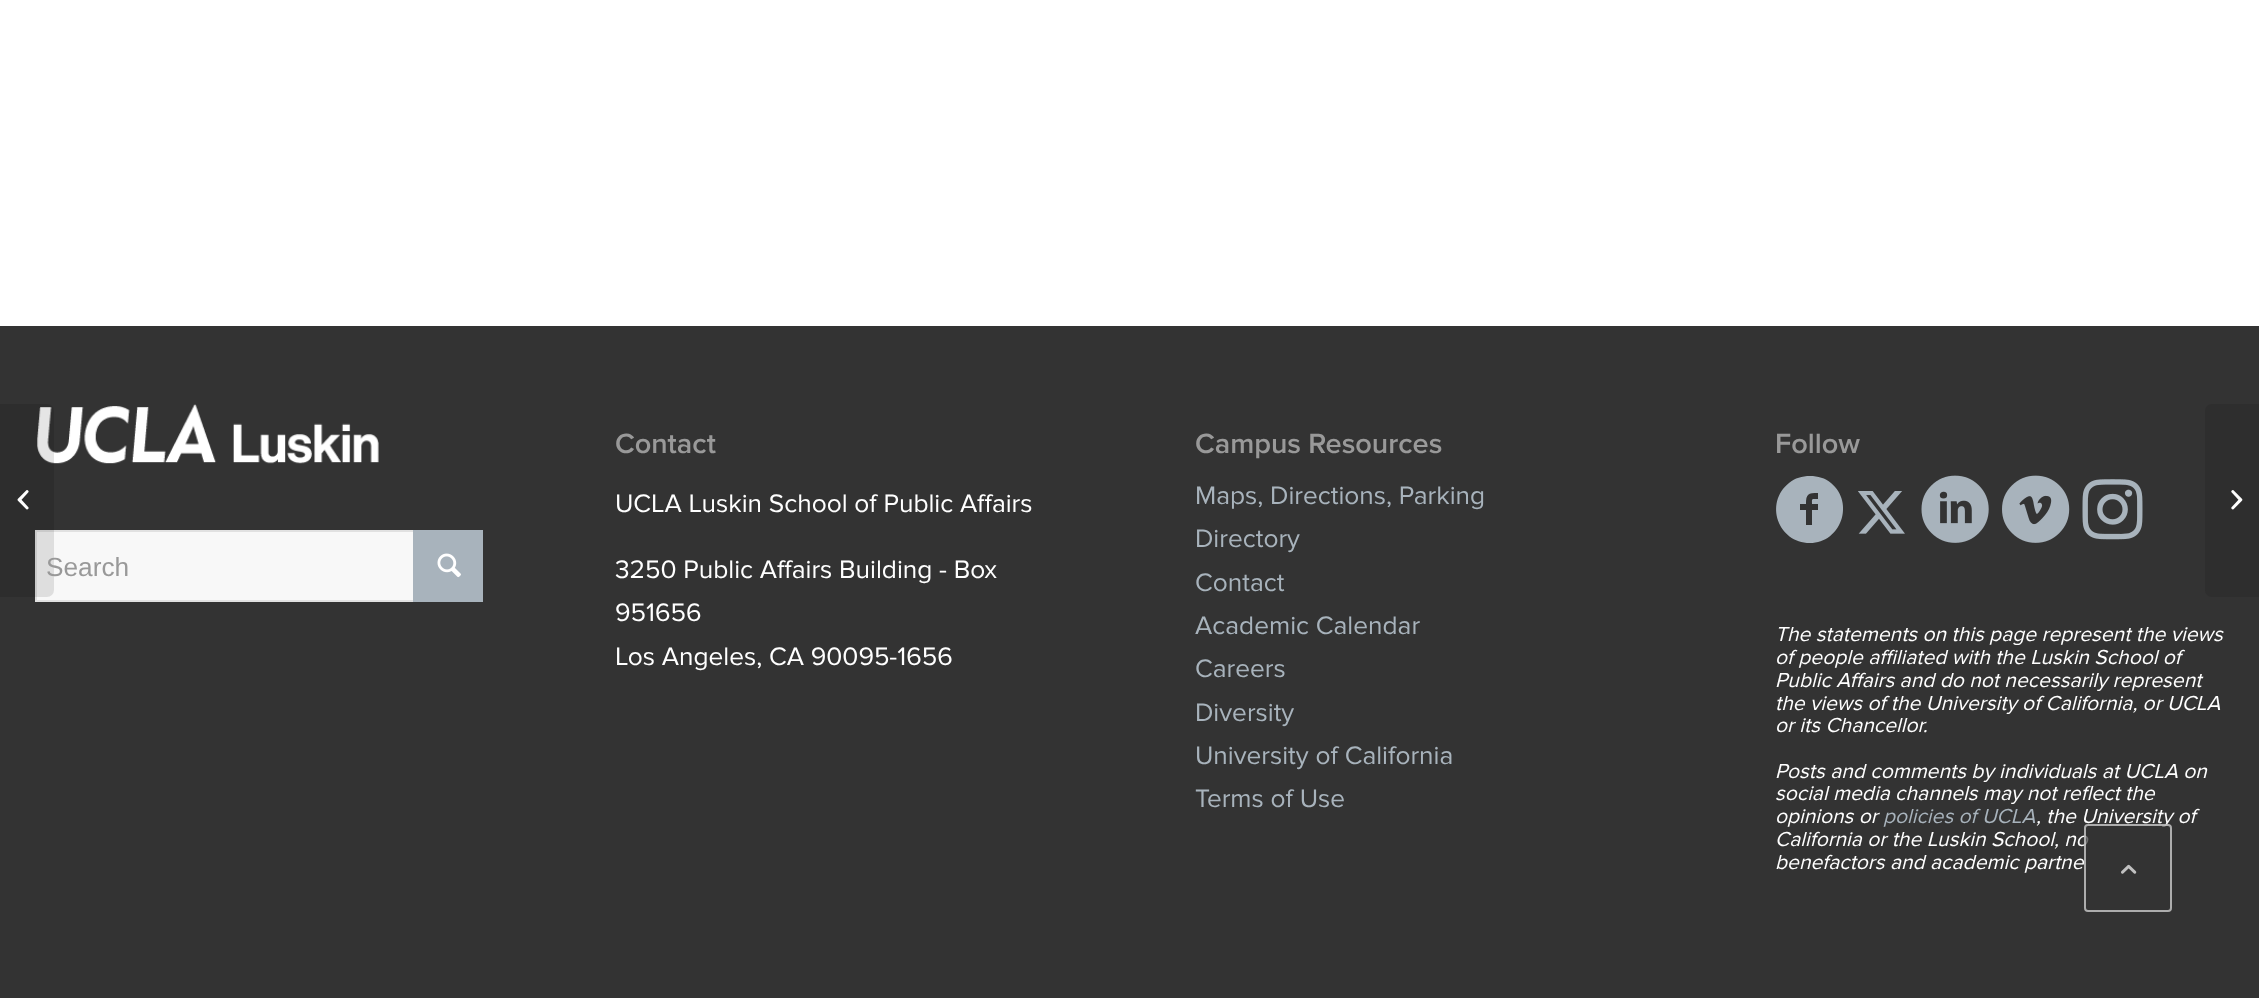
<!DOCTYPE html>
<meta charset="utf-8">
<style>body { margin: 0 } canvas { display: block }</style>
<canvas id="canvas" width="2259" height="998"></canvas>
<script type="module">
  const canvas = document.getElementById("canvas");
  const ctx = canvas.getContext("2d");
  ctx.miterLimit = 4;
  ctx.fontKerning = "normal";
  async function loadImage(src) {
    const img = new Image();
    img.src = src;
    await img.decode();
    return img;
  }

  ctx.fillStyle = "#ffffff";
  ctx.fillRect(0, 0, 2259, 998);
  ctx.fillStyle = "#333333";
  ctx.fillRect(0, 326, 2259, 672);
  ctx.drawImage(await loadImage("img2.png"), 37, 404, 342, 60);
  ctx.fillStyle = "#f8f8f8";
  ctx.fillRect(37, 532, 376, 68);
  ctx.strokeStyle = "#e1e1e1";
  ctx.lineWidth = 2;
  ctx.strokeRect(36, 531, 446, 70);
  ctx.fillStyle = "rgba(0, 0, 0, 0.1)";
  ctx.beginPath();
  ctx.roundRect(0, 404, 54, 193, [0, 7, 7, 0]);
  ctx.fill();
  ctx.drawImage(await loadImage("img1.png"), 17, 490, 12, 20);
  ctx.font = "26.25px Liberation Sans";
  ctx.fillStyle = "#999999";
  ctx.fillText("Search", 46, 576);
  ctx.fillStyle = "#a8b3bc";
  ctx.fillRect(413, 530, 70, 72);
  ctx.drawImage(await loadImage("img3.png"), 437, 553, 24, 25);
  ctx.font = "600 28.9px Proxima Nova";
  ctx.fillStyle = "#999999";
  ctx.fillText("Contact", 615, 453);
  ctx.font = "26.25px Proxima Nova";
  ctx.fillStyle = "#ffffff";
  ctx.fillText("UCLA Luskin School of Public Affairs", 615, 512);
  ctx.fillText("3250 Public Affairs Building - Box", 615, 578);
  ctx.fillText("951656", 615, 621);
  ctx.fillText("Los Angeles, CA 90095-1656", 615, 665);
  ctx.font = "600 28.9px Proxima Nova";
  ctx.fillStyle = "#999999";
  ctx.fillText("Campus Resources", 1195, 453);
  ctx.font = "26.25px Proxima Nova";
  ctx.fillStyle = "#a8b3bc";
  ctx.fillText("Maps, Directions, Parking", 1195, 504);
  ctx.fillText("Directory", 1195, 547);
  ctx.fillText("Contact", 1195, 591);
  ctx.fillText("Academic Calendar", 1195, 634);
  ctx.fillText("Careers", 1195, 677);
  ctx.fillText("Diversity", 1195, 721);
  ctx.fillText("University of California", 1195, 764);
  ctx.fillText("Terms of Use", 1195, 807);
  ctx.font = "600 28.9px Proxima Nova";
  ctx.fillStyle = "#999999";
  ctx.fillText("Follow", 1775, 453);
  ctx.fillStyle = "#a8b3bc";
  ctx.beginPath();
  ctx.moveTo(1810, 476);
  ctx.bezierCurveTo(1818, 476, 1825, 478, 1831, 483);
  ctx.bezierCurveTo(1855, 503, 1841, 543, 1810, 543);
  ctx.bezierCurveTo(1778, 543, 1764, 503, 1789, 483);
  ctx.bezierCurveTo(1795, 478, 1802, 476, 1810, 476);
  ctx.closePath();
  ctx.moveTo(1818, 499);
  ctx.lineTo(1818, 493);
  ctx.bezierCurveTo(1808, 493, 1806, 494, 1806, 504);
  ctx.lineTo(1800, 504);
  ctx.lineTo(1800, 510);
  ctx.lineTo(1806, 510);
  ctx.lineTo(1806, 525);
  ctx.lineTo(1812, 525);
  ctx.lineTo(1812, 510);
  ctx.lineTo(1818, 510);
  ctx.lineTo(1818, 504);
  ctx.lineTo(1812, 504);
  ctx.bezierCurveTo(1812, 498, 1811, 499, 1818, 499);
  ctx.closePath();
  ctx.fill();
  ctx.drawImage(await loadImage("img4.png"), 1858, 491, 47, 43);
  ctx.drawImage(await loadImage("img5.png"), 1921, 475, 68, 68);
  ctx.drawImage(await loadImage("img6.png"), 2002, 475, 68, 68);
  ctx.drawImage(await loadImage("img7.png"), 2082, 479, 61, 61);
  ctx.font = "italic 21px Proxima Nova";
  ctx.fillStyle = "#ffffff";
  ctx.fillText("The statements on this page represent the views", 1775, 641);
  ctx.fillText("of people affiliated with the Luskin School of", 1775, 664);
  ctx.fillText("Public Affairs and do not necessarily represent", 1775, 687);
  ctx.fillText("the views of the University of California, or UCLA", 1775, 710);
  ctx.fillText("or its Chancellor.", 1775, 732);
  ctx.fillText("Posts and comments by individuals at UCLA on", 1775, 778);
  ctx.fillText("social media channels may not reflect the", 1775, 800);
  ctx.fillText("opinions or", 1775, 823);
  ctx.fillStyle = "#a8b3bc";
  ctx.fillText("policies of UCLA", 1883, 823);
  ctx.fillStyle = "#ffffff";
  ctx.fillText(", the University of", 2036, 823);
  ctx.fillText("California or the Luskin School, no", 1775, 846);
  ctx.fillText("benefactors and academic partne", 1775, 869);
  ctx.fillStyle = "#2e2e2e";
  ctx.beginPath();
  ctx.roundRect(2205, 404, 54, 193, [7, 0, 0, 7]);
  ctx.fill();
  ctx.drawImage(await loadImage("img8.png"), 2231, 490, 12, 20);
  ctx.fillStyle = "rgba(51, 51, 51, 0.7)";
  ctx.beginPath();
  ctx.roundRect(2084, 824, 88, 88, 4);
  ctx.fill();
  ctx.beginPath();
  ctx.roundRect(2085, 825, 86, 86, 3);
  ctx.strokeStyle = "rgba(225, 225, 225, 0.7)";
  ctx.stroke();
  ctx.drawImage(await loadImage("img9.png"), 2121, 864, 16, 10);
</script>
